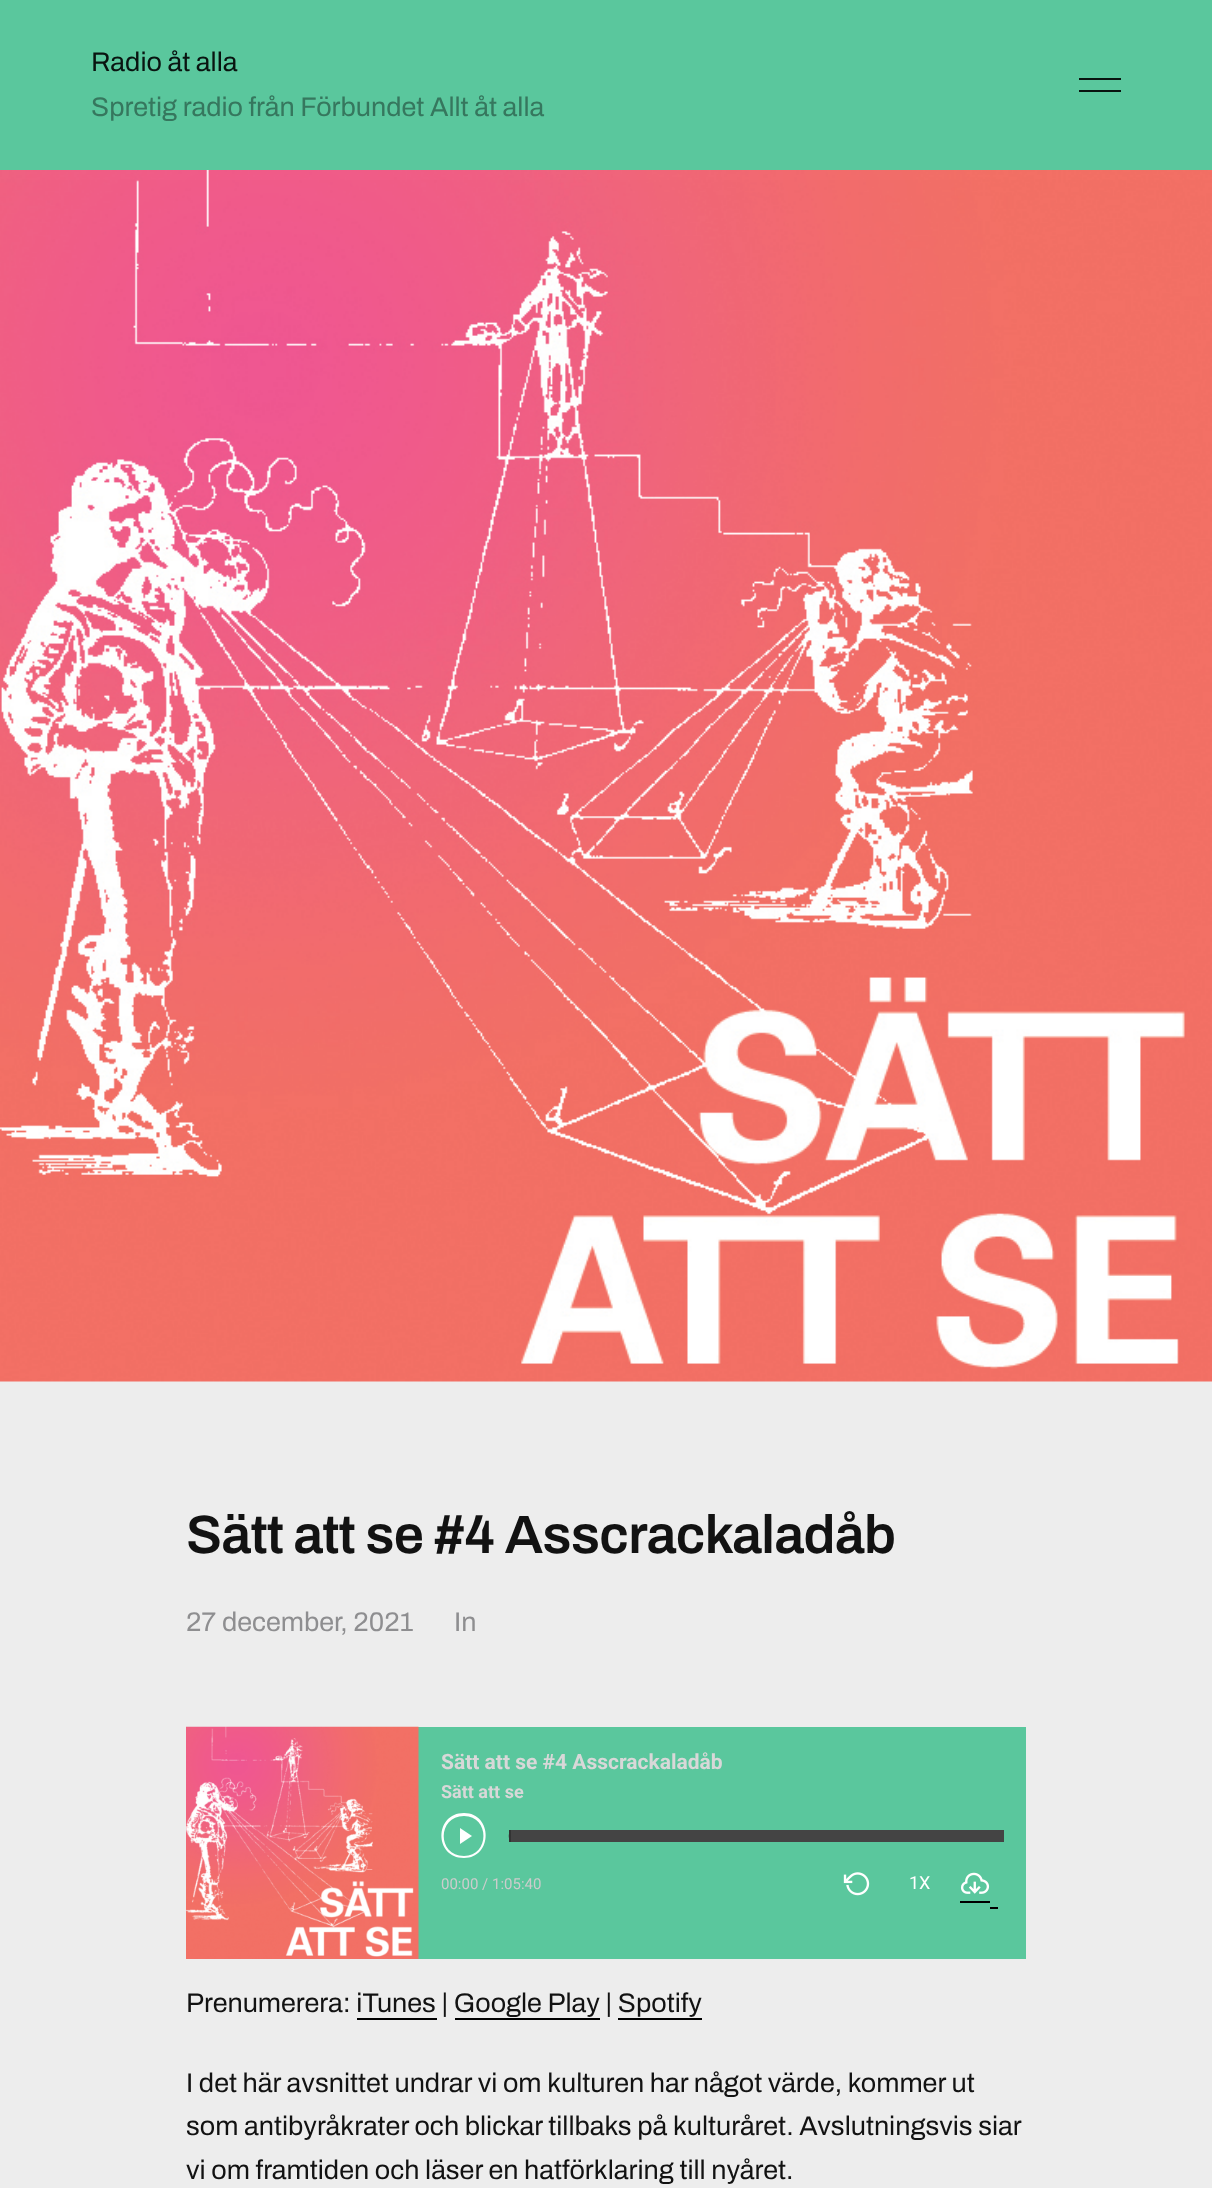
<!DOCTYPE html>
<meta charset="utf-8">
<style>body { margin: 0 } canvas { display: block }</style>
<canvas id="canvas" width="1212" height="2188"></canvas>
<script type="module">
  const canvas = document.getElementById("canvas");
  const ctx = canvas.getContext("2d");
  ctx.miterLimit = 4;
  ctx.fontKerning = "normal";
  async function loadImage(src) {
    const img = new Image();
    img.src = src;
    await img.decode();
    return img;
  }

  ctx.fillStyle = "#ededed";
  ctx.fillRect(0, 0, 1212, 2188);
  ctx.fillStyle = "#5ac79d";
  ctx.fillRect(0, 0, 1212, 170);
  ctx.font = "27px Archivo";
  ctx.fillStyle = "#091410";
  ctx.fillText("Radio åt alla", 91, 71);
  ctx.fillRect(1079, 78, 42, 2);
  ctx.fillRect(1079, 90, 42, 2);
  ctx.fillStyle = "#36775e";
  ctx.fillText("Spretig radio från Förbundet Allt åt alla", 91, 116);
  ctx.drawImage(await loadImage("img1.png"), 0, 170, 1212, 1212);
  ctx.letterSpacing = "-0.7px";
  ctx.font = "600 54px Archivo";
  ctx.fillStyle = "#121212";
  ctx.fillText("Sätt att se #4 Asscrackaladåb", 186, 1553);
  ctx.letterSpacing = "0px";
  ctx.font = "27px Archivo";
  ctx.fillStyle = "#8e8e90";
  ctx.fillText("27 december, 2021", 186, 1631);
  ctx.fillText("In", 454, 1631);
  ctx.fillStyle = "#5ac79d";
  ctx.fillRect(418, 1727, 608, 232);
  ctx.drawImage(await loadImage("img2.png"), 186, 1726, 233, 233);
  ctx.font = "bold 21px Roboto";
  ctx.fillStyle = "#d8d8d8";
  ctx.fillText("Sätt att se #4 Asscrackaladåb", 441, 1769);
  ctx.font = "bold 18px Roboto";
  ctx.fillText("Sätt att se", 441, 1798);
  ctx.fillStyle = "#ffffff";
  ctx.beginPath();
  ctx.moveTo(464, 1856);
  ctx.bezierCurveTo(490, 1856, 490, 1816, 464, 1816);
  ctx.bezierCurveTo(437, 1816, 437, 1856, 464, 1856);
  ctx.closePath();
  ctx.moveTo(464, 1858);
  ctx.bezierCurveTo(434, 1858, 434, 1813, 464, 1813);
  ctx.bezierCurveTo(493, 1813, 493, 1858, 464, 1858);
  ctx.closePath();
  ctx.moveTo(472, 1836);
  ctx.lineTo(460, 1844);
  ctx.lineTo(460, 1828);
  ctx.closePath();
  ctx.fill();
  ctx.fillStyle = "#444444";
  ctx.fillRect(511, 1830, 493, 12);
  ctx.drawImage(await loadImage("img3.png"), 508, 1834, 1, 4);
  ctx.fillStyle = "#333333";
  ctx.fillRect(509, 1830, 2, 12);
  ctx.font = "15px Roboto";
  ctx.fillStyle = "#cccccc";
  ctx.fillText("00:00 / 1:05:40", 441, 1889);
  ctx.drawImage(await loadImage("img4.png"), 843, 1872, 27, 24);
  ctx.font = "18px Roboto";
  ctx.fillStyle = "#ffffff";
  ctx.fillText("1X", 909, 1889);
  ctx.drawImage(await loadImage("img5.png"), 960, 1872, 30, 22);
  ctx.fillStyle = "#000000";
  ctx.fillRect(960, 1901, 30, 2);
  ctx.fillRect(990, 1907, 8, 2);
  ctx.font = "27px Archivo";
  ctx.fillStyle = "#121212";
  ctx.fillText("Prenumerera: iTunes | Google Play | Spotify", 186, 2012);
  ctx.fillStyle = "#000000";
  ctx.fillRect(357, 2018, 80, 2);
  ctx.fillRect(455, 2018, 145, 2);
  ctx.fillRect(618, 2018, 84, 2);
  ctx.fillStyle = "#121212";
  ctx.fillText("I det här avsnittet undrar vi om kulturen har något värde, kommer ut", 186, 2092);
  ctx.fillText("som antibyråkrater och blickar tillbaks på kulturåret. Avslutningsvis siar", 186, 2135);
  ctx.fillText("vi om framtiden och läser en hatförklaring till nyåret.", 186, 2179);
</script>
